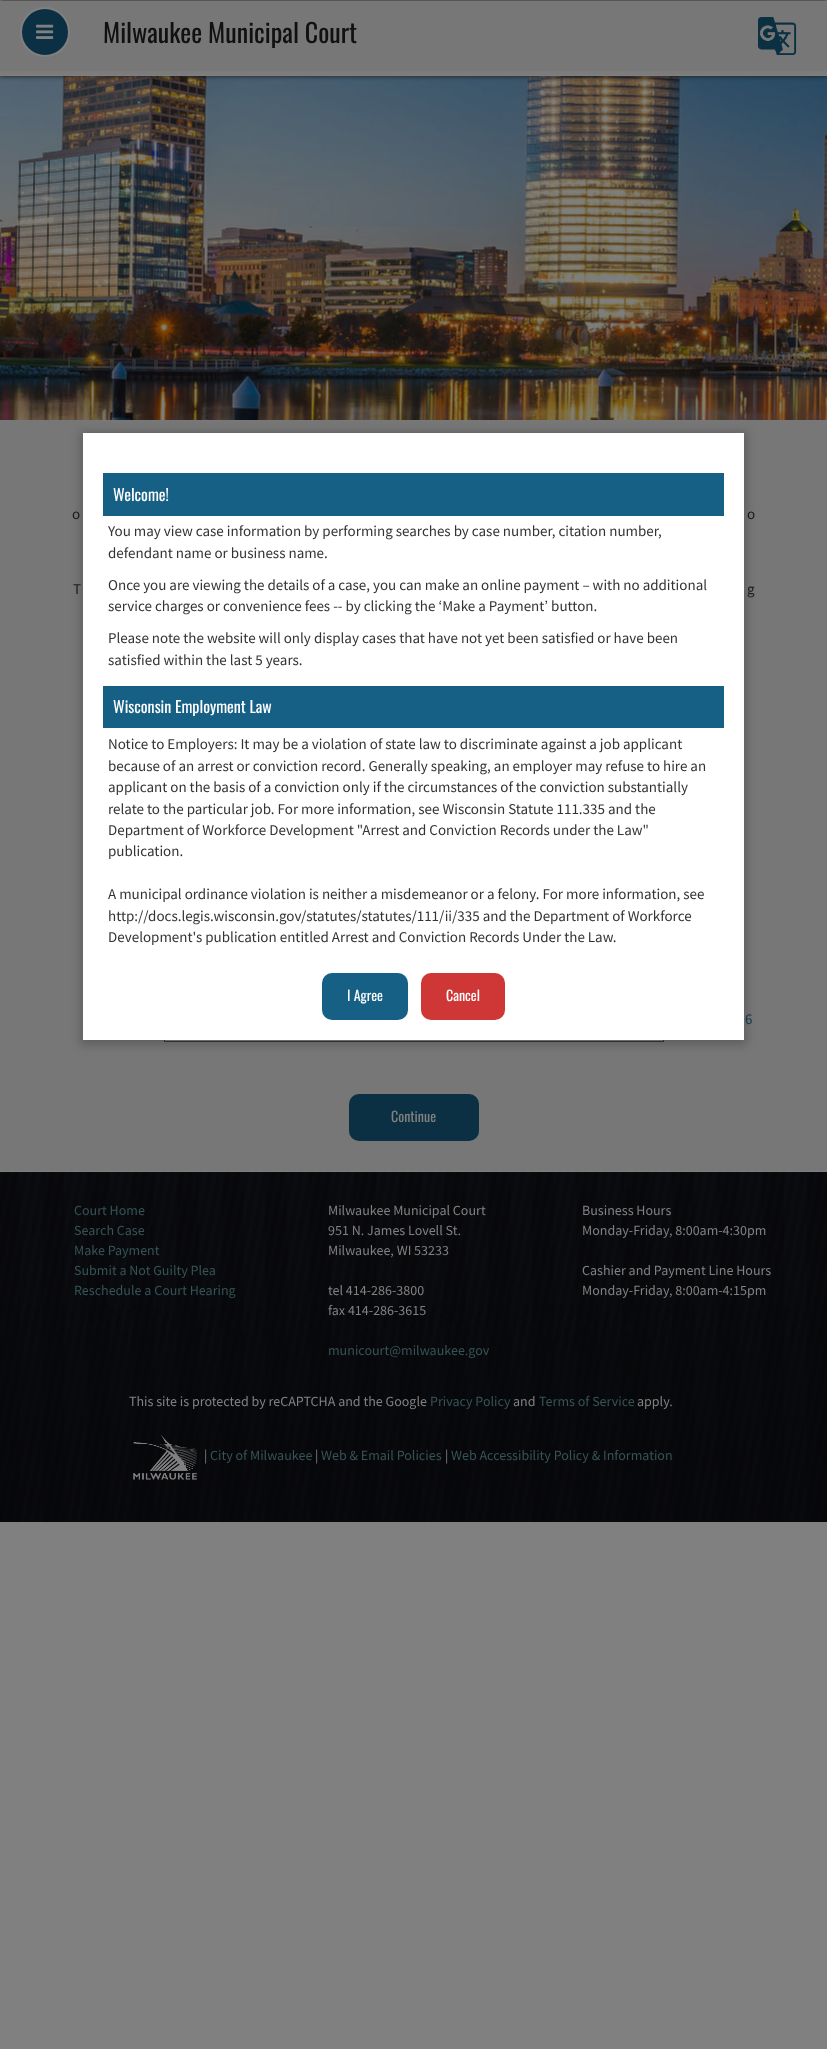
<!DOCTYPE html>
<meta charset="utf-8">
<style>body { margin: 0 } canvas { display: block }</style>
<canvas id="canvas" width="827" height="2049"></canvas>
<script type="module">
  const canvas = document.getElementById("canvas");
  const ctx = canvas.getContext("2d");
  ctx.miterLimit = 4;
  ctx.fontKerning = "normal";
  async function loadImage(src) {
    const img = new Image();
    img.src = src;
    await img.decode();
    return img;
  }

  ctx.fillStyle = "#808080";
  ctx.fillRect(0, 0, 827, 2049);
  ctx.drawImage(await loadImage("img3.png"), 0, 76, 827, 344);
  ctx.fillStyle = "#1a1a1a";
  ctx.filter = "blur(2.5px)";
  ctx.beginPath();
  ctx.rect(0, 1, 827, 75);
  ctx.fill();
  ctx.filter = "none";
  ctx.fillStyle = "#777777";
  ctx.fillRect(0, 1, 827, 70);
  ctx.fillStyle = "#7c7c7c";
  ctx.fillRect(0, 71, 827, 4);
  ctx.fillStyle = "#0b3043";
  ctx.beginPath();
  ctx.arc(45, 32, 24, 0, Math.PI * 2);
  ctx.fill();
  ctx.strokeStyle = "#808080";
  ctx.lineWidth = 2;
  ctx.stroke();
  ctx.drawImage(await loadImage("img1.png"), 36, 24, 18, 15);
  ctx.font = "26px Oswald";
  ctx.fillStyle = "#121010";
  ctx.fillText("Milwaukee Municipal Court", 103, 43);
  ctx.drawImage(await loadImage("img2.png"), 758, 17, 39, 38);
  ctx.fillStyle = "#808080";
  ctx.fillRect(0, 75, 827, 1);
  ctx.fillStyle = "#777777";
  ctx.fillRect(0, 420, 827, 751);
  ctx.fillStyle = "#808080";
  ctx.fillRect(165, 1040, 498, 1);
  ctx.strokeStyle = "#383838";
  ctx.lineWidth = 1;
  ctx.strokeRect(164.5, 992.5, 499, 49);
  ctx.fillStyle = "rgba(0, 0, 0, 0.2)";
  ctx.filter = "blur(5px)";
  ctx.beginPath();
  ctx.rect(80, 432, 667, 613);
  ctx.fill();
  ctx.filter = "none";
  ctx.fillStyle = "#ffffff";
  ctx.fillRect(83, 433, 661, 607);
  ctx.fillStyle = "#166085";
  ctx.fillRect(103, 473, 621, 43);
  ctx.font = "16px Oswald";
  ctx.fillStyle = "#ffffff";
  ctx.fillText("Welcome!", 113, 501);
  ctx.font = "15px Source Sans Pro";
  ctx.fillStyle = "#333333";
  ctx.fillText("You may view case information by performing searches by case number, citation number,", 108, 536);
  ctx.fillText("defendant name or business name.", 108, 558);
  ctx.fillText("Once you are viewing the details of a case, you can make an online payment – with no additional", 108, 590);
  ctx.fillText("service charges or convenience fees -- by clicking the ‘Make a Payment’ button.", 108, 611);
  ctx.fillText("Please note the website will only display cases that have not yet been satisfied or have been", 108, 643);
  ctx.fillText("satisfied within the last 5 years.", 108, 665);
  ctx.fillStyle = "#166085";
  ctx.fillRect(103, 686, 621, 42);
  ctx.font = "16px Oswald";
  ctx.fillStyle = "#ffffff";
  ctx.fillText("Wisconsin Employment Law", 113, 713);
  ctx.font = "15px Source Sans Pro";
  ctx.fillStyle = "#333333";
  ctx.fillText("Notice to Employers: It may be a violation of state law to discriminate against a job applicant", 108, 749);
  ctx.fillText("because of an arrest or conviction record. Generally speaking, an employer may refuse to hire an", 108, 771);
  ctx.fillText("applicant on the basis of a conviction only if the circumstances of the conviction substantially", 108, 792);
  ctx.fillText("relate to the particular job. For more information, see Wisconsin Statute 111.335 and the", 108, 814);
  ctx.fillText("Department of Workforce Development \"Arrest and Conviction Records under the Law\"", 108, 835);
  ctx.fillText("publication.", 108, 856);
  ctx.fillText("A municipal ordinance violation is neither a misdemeanor or a felony. For more information, see", 108, 899);
  ctx.fillText("http://docs.legis.wisconsin.gov/statutes/statutes/111/ii/335 and the Department of Workforce", 108, 921);
  ctx.fillText("Development's publication entitled Arrest and Conviction Records Under the Law.", 108, 942);
  ctx.fillStyle = "#166085";
  ctx.beginPath();
  ctx.roundRect(322, 973, 86, 47, 10);
  ctx.fill();
  ctx.font = "14px Oswald";
  ctx.fillStyle = "#ffffff";
  ctx.fillText("I Agree", 347, 1001);
  ctx.fillStyle = "#cf3736";
  ctx.beginPath();
  ctx.roundRect(421, 973, 84, 47, 10);
  ctx.fill();
  ctx.fillStyle = "#ffffff";
  ctx.fillText("Cancel", 446, 1001);
  ctx.font = "15px Source Sans Pro";
  ctx.fillStyle = "#1a1a1a";
  ctx.fillText("o", 72, 519);
  ctx.fillText("o", 747, 519);
  ctx.fillText("T", 73, 594);
  ctx.fillText("g", 747, 594);
  ctx.fillStyle = "#10394a";
  ctx.fillText("6", 745, 1024);
  ctx.fillStyle = "#0b3043";
  ctx.beginPath();
  ctx.roundRect(349, 1094, 130, 47, 10);
  ctx.fill();
  ctx.font = "14px Oswald";
  ctx.fillStyle = "#808080";
  ctx.fillText("Continue", 391, 1122);
  ctx.drawImage(await loadImage("img4.png"), 0, 1172, 827, 350);
  ctx.font = "14px Source Sans Pro";
  ctx.fillStyle = "#365356";
  ctx.fillText("Court Home", 74, 1215);
  ctx.fillText("Search Case", 74, 1235);
  ctx.fillText("Make Payment", 74, 1255);
  ctx.fillText("Submit a Not Guilty Plea", 74, 1275);
  ctx.fillText("Reschedule a Court Hearing", 74, 1295);
  ctx.fillStyle = "#808080";
  ctx.fillText("Milwaukee Municipal Court", 328, 1215);
  ctx.fillText("951 N. James Lovell St.", 328, 1235);
  ctx.fillText("Milwaukee, WI 53233", 328, 1255);
  ctx.fillText("tel 414-286-3800", 328, 1295);
  ctx.fillText("fax 414-286-3615", 328, 1315);
  ctx.fillStyle = "#365356";
  ctx.fillText("municourt@milwaukee.gov", 328, 1355);
  ctx.fillStyle = "#808080";
  ctx.fillText("Business Hours", 582, 1215);
  ctx.fillText("Monday-Friday, 8:00am-4:30pm", 582, 1235);
  ctx.fillText("Cashier and Payment Line Hours", 582, 1275);
  ctx.fillText("Monday-Friday, 8:00am-4:15pm", 582, 1295);
  ctx.fillText("This site is protected by reCAPTCHA and the Google", 129, 1406);
  ctx.fillStyle = "#365356";
  ctx.fillText("Privacy Policy", 430, 1406);
  ctx.fillStyle = "#808080";
  ctx.fillText("and", 513, 1406);
  ctx.fillStyle = "#365356";
  ctx.fillText("Terms of Service", 539, 1406);
  ctx.fillStyle = "#808080";
  ctx.fillText("apply.", 637, 1406);
  ctx.drawImage(await loadImage("img5.png"), 133, 1434, 64, 46);
  ctx.fillText("|", 204, 1460);
  ctx.fillStyle = "#365356";
  ctx.fillText("City of Milwaukee", 210, 1460);
  ctx.fillStyle = "#808080";
  ctx.fillText("|", 315, 1460);
  ctx.fillStyle = "#365356";
  ctx.fillText("Web & Email Policies", 321, 1460);
  ctx.fillStyle = "#808080";
  ctx.fillText("|", 445, 1460);
  ctx.fillStyle = "#365356";
  ctx.fillText("Web Accessibility Policy & Information", 451, 1460);
</script>
